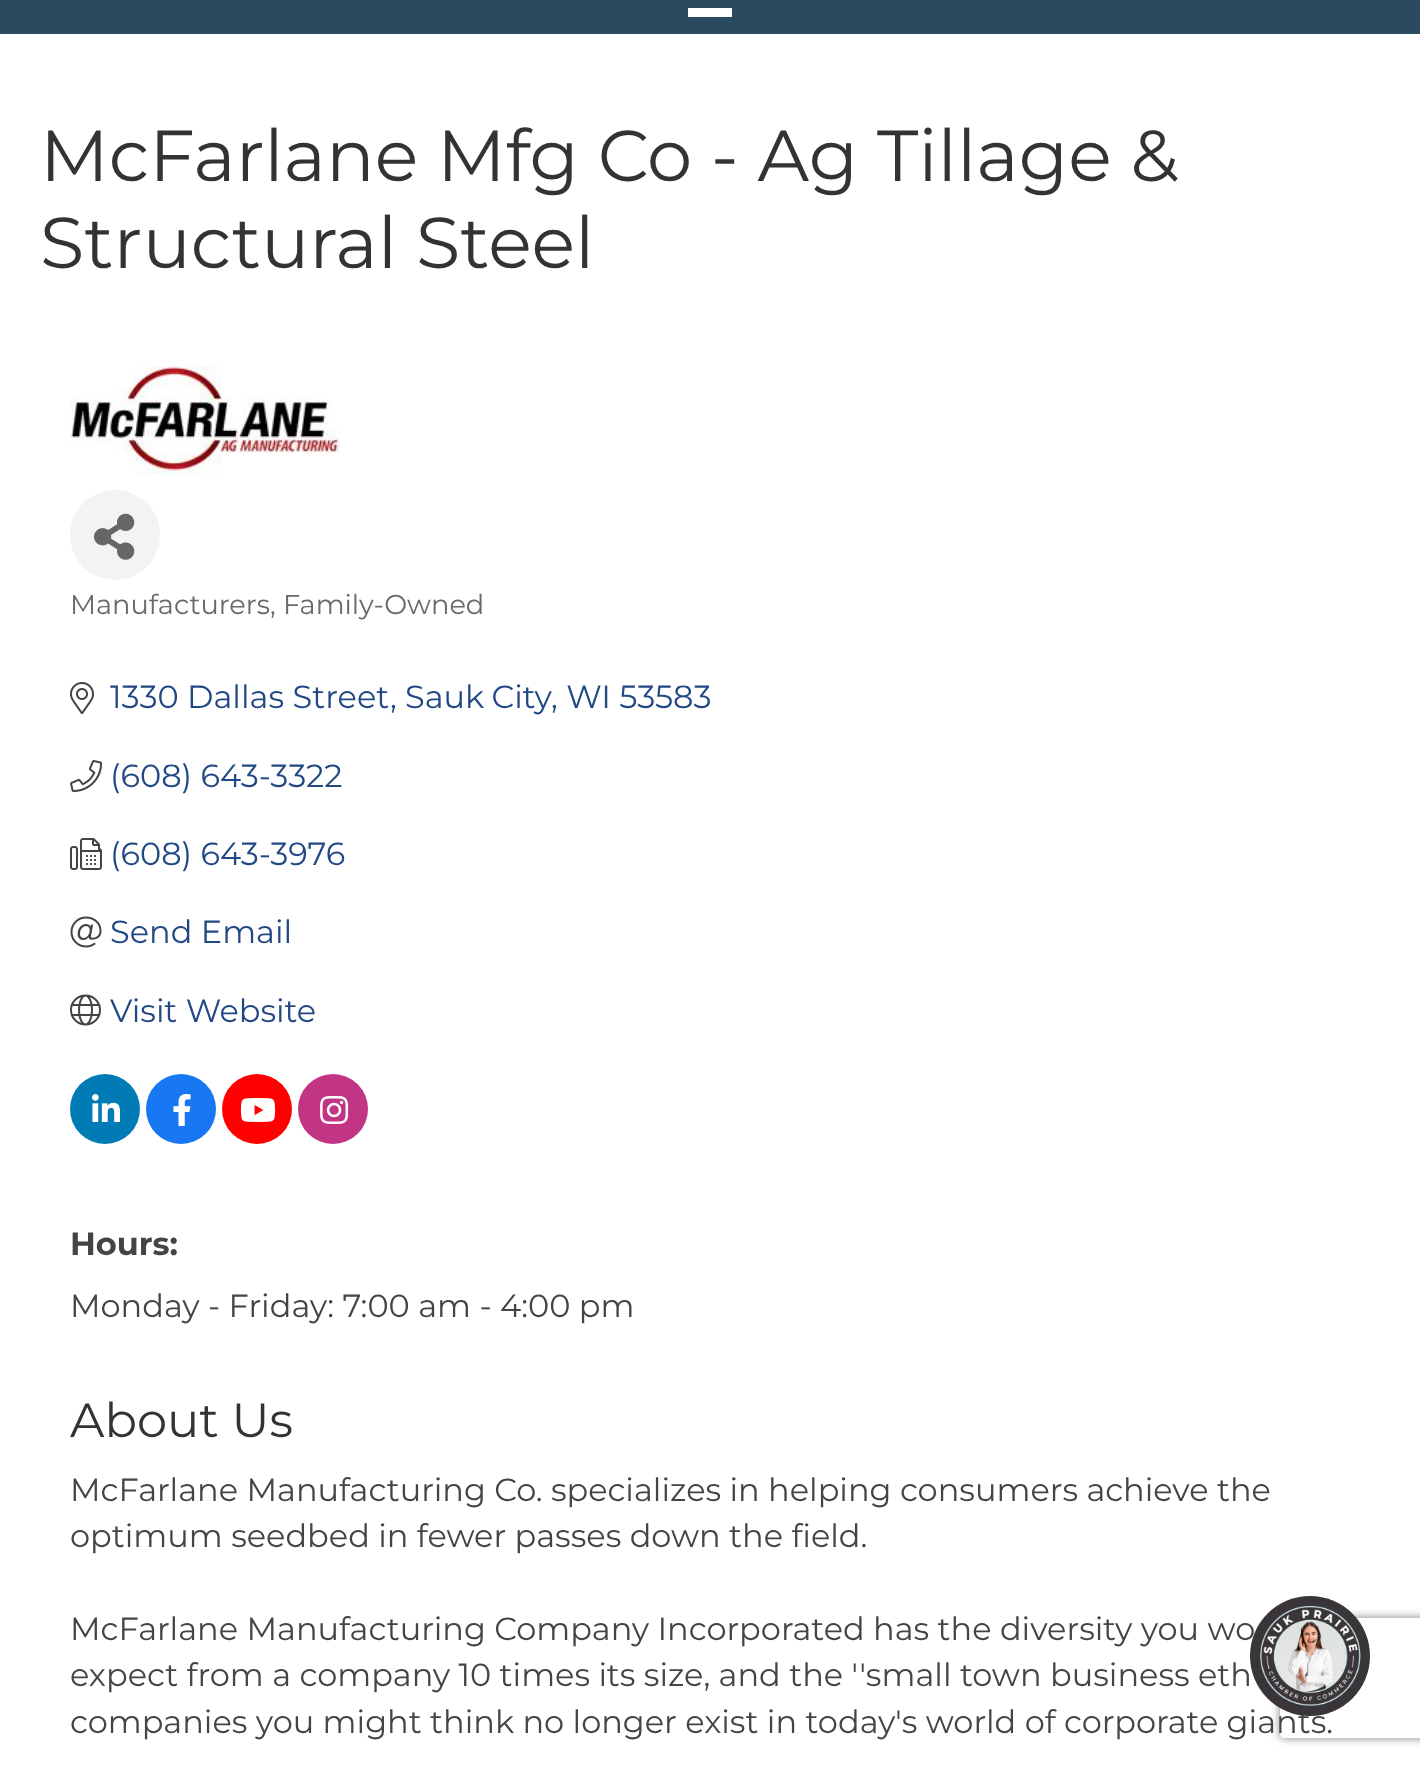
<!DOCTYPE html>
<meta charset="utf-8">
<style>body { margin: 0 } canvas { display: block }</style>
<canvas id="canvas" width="1420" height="1765"></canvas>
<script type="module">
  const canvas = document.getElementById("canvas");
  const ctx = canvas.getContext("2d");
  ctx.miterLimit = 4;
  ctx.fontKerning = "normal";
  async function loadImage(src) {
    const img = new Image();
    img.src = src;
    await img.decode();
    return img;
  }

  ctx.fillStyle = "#ffffff";
  ctx.fillRect(0, 0, 1420, 1765);
  ctx.fillStyle = "#294a5f";
  ctx.fillRect(0, 0, 1420, 34);
  ctx.fillStyle = "#ffffff";
  ctx.fillRect(688, 8, 44, 9);
  ctx.font = "72px Montserrat";
  ctx.fillStyle = "#333333";
  ctx.fillText("McFarlane Mfg Co - Ag Tillage &", 40, 181);
  ctx.fillText("Structural Steel", 40, 268);
  ctx.drawImage(await loadImage("img1.png"), 70, 366, 270, 108);
  ctx.fillStyle = "#f3f3f3";
  ctx.beginPath();
  ctx.arc(115, 535, 45, 0, Math.PI * 2);
  ctx.fill();
  ctx.drawImage(await loadImage("img2.png"), 94, 513, 41, 47);
  ctx.font = "27.25px Montserrat";
  ctx.fillStyle = "#696969";
  ctx.fillText("Manufacturers, Family-Owned", 70, 614);
  ctx.drawImage(await loadImage("img3.png"), 70, 682, 24, 32);
  ctx.font = "32px Montserrat";
  ctx.fillStyle = "#224884";
  ctx.fillText("1330 Dallas Street", 110, 708);
  ctx.fillText(",", 390, 708);
  ctx.wordSpacing = "-1px";
  ctx.fillText("Sauk City", 405, 708);
  ctx.wordSpacing = "0px";
  ctx.fillText(", WI 53583", 551, 708);
  ctx.drawImage(await loadImage("img4.png"), 70, 760, 33, 32);
  ctx.fillText("(608) 643-3322", 110, 787);
  ctx.drawImage(await loadImage("img5.png"), 70, 838, 32, 32);
  ctx.fillText("(608) 643-3976", 110, 865);
  ctx.drawImage(await loadImage("img6.png"), 70, 916, 32, 32);
  ctx.fillText("Send Email", 110, 943);
  ctx.drawImage(await loadImage("img7.png"), 70, 994, 31, 32);
  ctx.fillText("Visit Website", 110, 1022);
  ctx.fillStyle = "#007bb5";
  ctx.beginPath();
  ctx.arc(105, 1109, 35, 0, Math.PI * 2);
  ctx.fill();
  ctx.drawImage(await loadImage("img8.png"), 92, 1094, 28, 28);
  ctx.fillStyle = "#1877f2";
  ctx.beginPath();
  ctx.arc(181, 1109, 35, 0, Math.PI * 2);
  ctx.fill();
  ctx.drawImage(await loadImage("img9.png"), 173, 1094, 18, 32);
  ctx.fillStyle = "#ff0000";
  ctx.beginPath();
  ctx.arc(257, 1109, 35, 0, Math.PI * 2);
  ctx.fill();
  ctx.drawImage(await loadImage("img10.png"), 240, 1098, 36, 24);
  ctx.fillStyle = "#c13584";
  ctx.beginPath();
  ctx.arc(333, 1109, 35, 0, Math.PI * 2);
  ctx.fill();
  ctx.drawImage(await loadImage("img11.png"), 320, 1096, 29, 28);
  ctx.font = "bold 32px Montserrat";
  ctx.fillStyle = "#444444";
  ctx.fillText("Hours:", 70, 1255);
  ctx.font = "32px Montserrat";
  ctx.fillText("Monday - Friday: 7:00 am - 4:00 pm", 70, 1317);
  ctx.font = "48px Montserrat";
  ctx.fillStyle = "#333333";
  ctx.fillText("About Us", 70, 1437);
  ctx.font = "32px Montserrat";
  ctx.fillStyle = "#444444";
  ctx.fillText("McFarlane Manufacturing Co. specializes in helping consumers achieve the", 70, 1501);
  ctx.fillText("optimum seedbed in fewer passes down the field.", 70, 1547);
  ctx.fillText("McFarlane Manufacturing Company Incorporated has the diversity you wo", 70, 1640);
  ctx.fillText("expect from a company 10 times its size, and the ''small town business eth", 70, 1686);
  ctx.fillText("companies you might think no longer exist in today's world of corporate giants.", 70, 1733);
  ctx.save();
  ctx.beginPath();
  ctx.moveTo(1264, 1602);
  ctx.lineTo(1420, 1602);
  ctx.lineTo(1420, 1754);
  ctx.lineTo(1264, 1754);
  ctx.closePath();
  ctx.moveTo(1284, 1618);
  ctx.lineTo(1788, 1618);
  ctx.bezierCurveTo(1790, 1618, 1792, 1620, 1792, 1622);
  ctx.lineTo(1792, 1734);
  ctx.bezierCurveTo(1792, 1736, 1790, 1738, 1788, 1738);
  ctx.lineTo(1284, 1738);
  ctx.bezierCurveTo(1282, 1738, 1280, 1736, 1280, 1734);
  ctx.lineTo(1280, 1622);
  ctx.bezierCurveTo(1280, 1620, 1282, 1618, 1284, 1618);
  ctx.closePath();
  ctx.clip("evenodd");
  ctx.fillStyle = "#808080";
  ctx.filter = "blur(5px)";
  ctx.beginPath();
  ctx.roundRect(1280, 1618, 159, 120, 4);
  ctx.fill();
  ctx.filter = "none";
  ctx.restore();
  ctx.fillStyle = "#3a3539";
  ctx.beginPath();
  ctx.arc(1310, 1656, 60, 0, Math.PI * 2);
  ctx.fill();
  ctx.drawImage(await loadImage("img12.png"), 1260, 1605, 101, 101);
</script>
